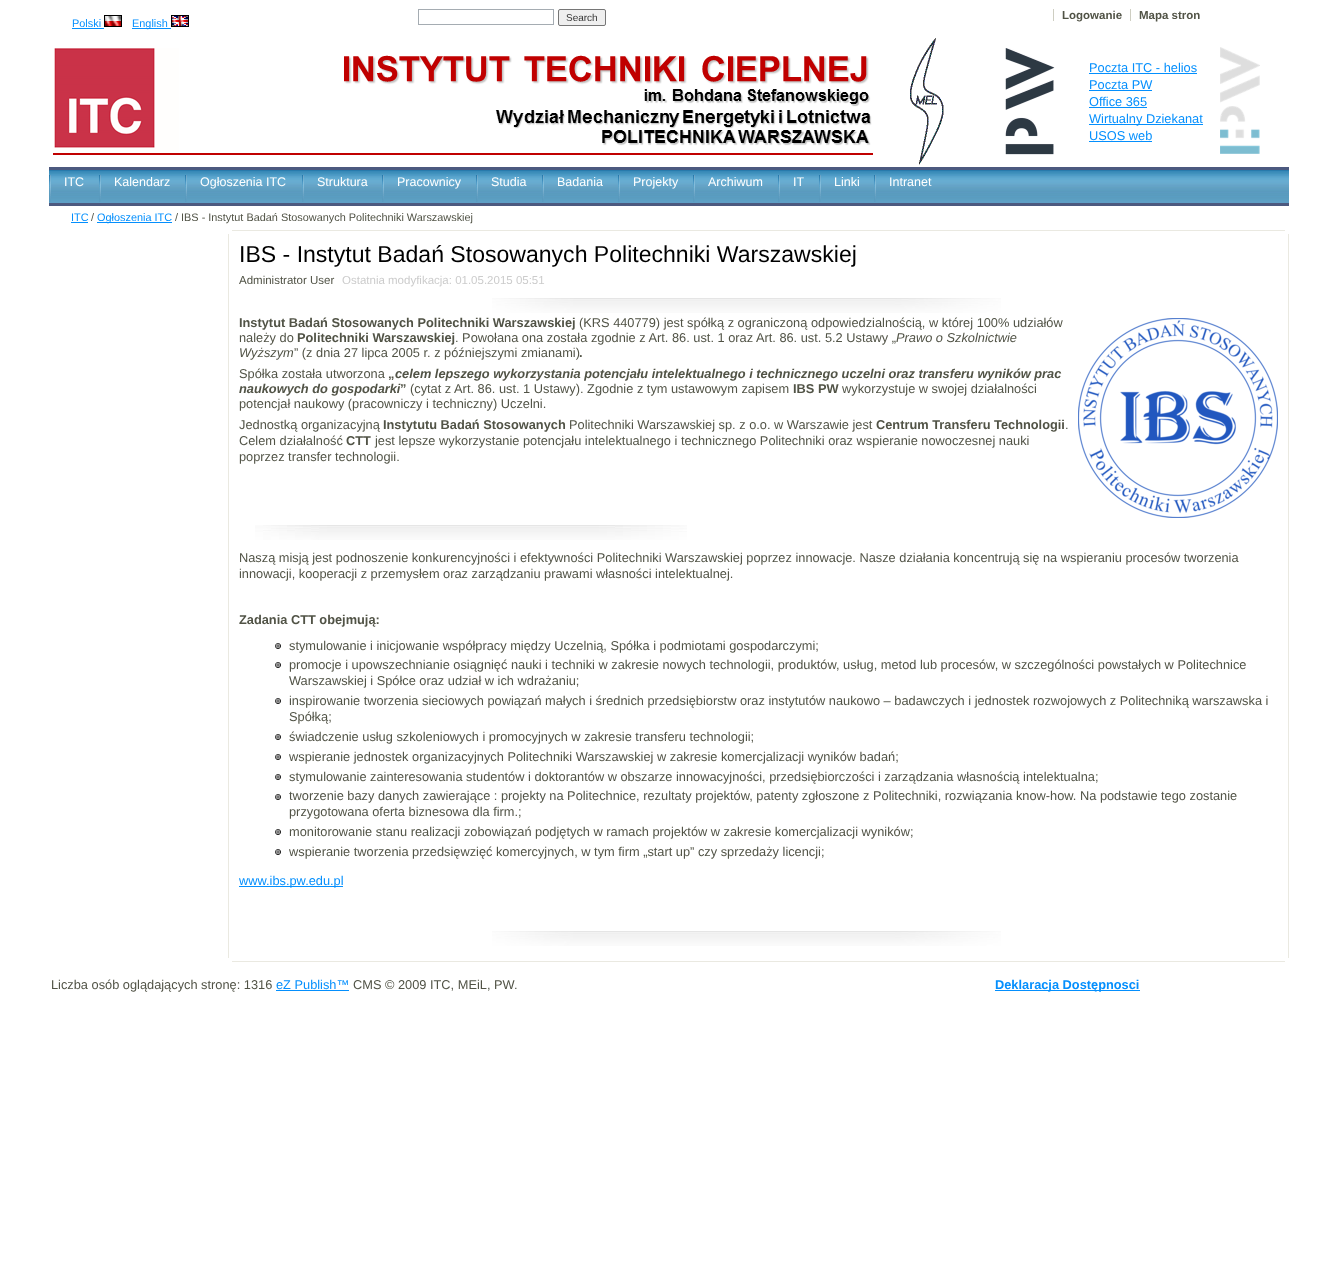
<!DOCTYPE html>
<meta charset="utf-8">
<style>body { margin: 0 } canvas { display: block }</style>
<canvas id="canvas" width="1338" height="1263"></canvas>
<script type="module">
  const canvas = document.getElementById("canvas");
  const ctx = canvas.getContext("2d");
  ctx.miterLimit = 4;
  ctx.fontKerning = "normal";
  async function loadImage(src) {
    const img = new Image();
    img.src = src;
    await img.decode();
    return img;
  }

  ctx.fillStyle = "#ffffff";
  ctx.fillRect(0, 0, 1338, 1263);
  ctx.strokeStyle = "#a5acb2";
  ctx.strokeRect(418.5, 9.5, 135, 15);
  ctx.fillStyle = "#efefef";
  ctx.beginPath();
  ctx.roundRect(558.5, 9.5, 47, 16, 1.5);
  ctx.fill();
  ctx.strokeStyle = "#767676";
  ctx.stroke();
  ctx.font = "10px Liberation Sans";
  ctx.fillStyle = "#343434";
  ctx.fillText("Search", 566, 21);
  ctx.font = "bold 11.5px Liberation Sans";
  ctx.fillStyle = "#515346";
  ctx.fillText("Logowanie", 1062, 19);
  ctx.fillStyle = "#cecec2";
  ctx.fillRect(1053, 9, 1, 12);
  ctx.fillStyle = "#515346";
  ctx.fillText("Mapa stron", 1139, 19);
  ctx.fillStyle = "#cecec2";
  ctx.fillRect(1130, 9, 1, 12);
  ctx.font = "10.9px Liberation Sans";
  ctx.fillStyle = "#048ffd";
  ctx.fillText("Polski", 72, 27);
  ctx.fillRect(72, 28, 32, 1);
  ctx.drawImage(await loadImage("img1.png"), 104, 15, 18, 12);
  ctx.fillRect(132, 28, 39, 1);
  ctx.fillText("English", 132, 27);
  ctx.drawImage(await loadImage("img2.png"), 171, 15, 18, 12);
  ctx.drawImage(await loadImage("img3.png"), 53, 48, 820, 107);
  ctx.drawImage(await loadImage("img4.png"), 910, 38, 34, 127);
  ctx.drawImage(await loadImage("img5.png"), 1005, 48, 50, 107);
  ctx.font = "12.8px Liberation Sans";
  ctx.fillText("Poczta ITC - helios", 1089, 72);
  ctx.fillRect(1089, 73, 108, 1);
  ctx.fillText("Poczta PW", 1089, 89);
  ctx.fillRect(1089, 90, 63, 1);
  ctx.fillText("Office 365", 1089, 106);
  ctx.fillRect(1089, 107, 58, 1);
  ctx.fillRect(1089, 124, 114, 1);
  ctx.fillText("Wirtualny Dziekanat", 1089, 123);
  ctx.fillText("USOS web", 1089, 140);
  ctx.fillRect(1089, 141, 63, 1);
  ctx.drawImage(await loadImage("img6.png"), 1220, 47, 40, 107);
  ctx.drawImage(await loadImage("img7.png"), 49, 170, 1240, 33);
  ctx.fillStyle = "#4c597f";
  ctx.fillRect(49, 167, 1240, 3);
  ctx.fillRect(49, 203, 1240, 3);
  ctx.drawImage(await loadImage("img8.png"), 49, 175, 2, 27);
  ctx.font = "12.5px Liberation Sans";
  ctx.fillStyle = "#ffffff";
  ctx.fillText("ITC", 64, 186);
  ctx.drawImage(await loadImage("img8.png"), 99, 175, 2, 27);
  ctx.fillText("Kalendarz", 114, 186);
  ctx.drawImage(await loadImage("img8.png"), 185, 175, 2, 27);
  ctx.fillText("Ogłoszenia ITC", 200, 186);
  ctx.drawImage(await loadImage("img8.png"), 302, 175, 2, 27);
  ctx.fillText("Struktura", 317, 186);
  ctx.drawImage(await loadImage("img8.png"), 382, 175, 2, 27);
  ctx.fillText("Pracownicy", 397, 186);
  ctx.drawImage(await loadImage("img8.png"), 476, 175, 2, 27);
  ctx.fillText("Studia", 491, 186);
  ctx.drawImage(await loadImage("img8.png"), 542, 175, 2, 27);
  ctx.fillText("Badania", 557, 186);
  ctx.drawImage(await loadImage("img8.png"), 618, 175, 2, 27);
  ctx.fillText("Projekty", 633, 186);
  ctx.drawImage(await loadImage("img8.png"), 693, 175, 2, 27);
  ctx.fillText("Archiwum", 708, 186);
  ctx.drawImage(await loadImage("img8.png"), 778, 175, 2, 27);
  ctx.fillText("IT", 793, 186);
  ctx.drawImage(await loadImage("img8.png"), 819, 175, 2, 27);
  ctx.fillText("Linki", 834, 186);
  ctx.drawImage(await loadImage("img8.png"), 874, 175, 2, 27);
  ctx.fillText("Intranet", 889, 186);
  ctx.font = "10.9px Liberation Sans";
  ctx.fillStyle = "#048ffd";
  ctx.fillText("ITC", 71, 221);
  ctx.fillRect(71, 222, 17, 1);
  ctx.fillStyle = "#515346";
  ctx.fillText("/", 91, 221);
  ctx.fillStyle = "#048ffd";
  ctx.fillRect(97, 222, 75, 1);
  ctx.fillText("Ogłoszenia ITC", 97, 221);
  ctx.fillStyle = "#515346";
  ctx.fillText("/ IBS - Instytut Badań Stosowanych Politechniki Warszawskiej", 175, 221);
  ctx.fillStyle = "#eae9e1";
  ctx.fillRect(232, 230, 1053, 1);
  ctx.fillRect(228, 234, 1, 724);
  ctx.fillRect(1288, 234, 1, 724);
  ctx.font = "23.05px Liberation Sans";
  ctx.fillStyle = "#000000";
  ctx.fillText("IBS - Instytut Badań Stosowanych Politechniki Warszawskiej", 239, 262);
  ctx.drawImage(await loadImage("img9.png"), 492, 298, 509, 15);
  ctx.font = "11.5px Liberation Sans";
  ctx.fillStyle = "#515346";
  ctx.fillText("Administrator User", 239, 284);
  ctx.fillStyle = "#cccccc";
  ctx.fillText("Ostatnia modyfikacja: 01.05.2015 05:51", 342, 284);
  ctx.font = "bold 12.8px Liberation Sans";
  ctx.fillStyle = "#515346";
  ctx.fillText("Instytut Badań Stosowanych Politechniki Warszawskiej", 239, 327);
  ctx.font = "12.8px Liberation Sans";
  ctx.fillText("(KRS 440779) jest spółką z ograniczoną odpowiedzialnością, w której 100% udziałów", 579, 327);
  ctx.fillText("należy do", 239, 342);
  ctx.font = "bold 12.8px Liberation Sans";
  ctx.fillText("Politechniki Warszawskiej", 297, 342);
  ctx.font = "12.8px Liberation Sans";
  ctx.fillText(". Powołana ona została zgodnie z Art. 86. ust. 1 oraz Art. 86. ust. 5.2 Ustawy „", 455, 342);
  ctx.font = "italic 12.8px Liberation Sans";
  ctx.fillText("Prawo o Szkolnictwie", 896, 342);
  ctx.fillText("Wyższym", 239, 357);
  ctx.font = "12.8px Liberation Sans";
  ctx.fillText("” (z dnia 27 lipca 2005 r. z późniejszymi zmianami)", 294, 357);
  ctx.font = "bold 12.8px Liberation Sans";
  ctx.fillText(".", 579, 357);
  ctx.font = "12.8px Liberation Sans";
  ctx.fillText("Spółka została utworzona", 239, 378);
  ctx.font = "bold 12.8px Liberation Sans";
  ctx.fillText("„", 388, 378);
  ctx.font = "italic bold 12.8px Liberation Sans";
  ctx.fillText("celem lepszego wykorzystania potencjału intelektualnego i technicznego uczelni oraz transferu wyników prac", 395, 378);
  ctx.fillText("naukowych do gospodarki", 239, 393);
  ctx.font = "bold 12.8px Liberation Sans";
  ctx.fillText("”", 400, 393);
  ctx.font = "12.8px Liberation Sans";
  ctx.fillText("(cytat z Art. 86. ust. 1 Ustawy). Zgodnie z tym ustawowym zapisem", 410, 393);
  ctx.font = "bold 12.8px Liberation Sans";
  ctx.fillText("IBS PW", 793, 393);
  ctx.font = "12.8px Liberation Sans";
  ctx.fillText("wykorzystuje w swojej działalności", 842, 393);
  ctx.fillText("potencjał naukowy (pracowniczy i techniczny) Uczelni.", 239, 408);
  ctx.drawImage(await loadImage("img10.png"), 1078, 318, 200, 200);
  ctx.drawImage(await loadImage("img9.png"), 492, 931, 509, 15);
  ctx.fillText("Jednostką organizacyjną", 239, 429);
  ctx.font = "bold 12.8px Liberation Sans";
  ctx.fillText("Instytutu Badań Stosowanych", 383, 429);
  ctx.font = "12.8px Liberation Sans";
  ctx.fillText("Politechniki Warszawskiej sp. z o.o. w Warszawie jest", 569, 429);
  ctx.font = "bold 12.8px Liberation Sans";
  ctx.fillText("Centrum Transferu Technologii", 876, 429);
  ctx.font = "12.8px Liberation Sans";
  ctx.fillText(".", 1065, 429);
  ctx.fillText("Celem działalność", 239, 445);
  ctx.font = "bold 12.8px Liberation Sans";
  ctx.fillText("CTT", 346, 445);
  ctx.font = "12.8px Liberation Sans";
  ctx.fillText("jest lepsze wykorzystanie potencjału intelektualnego i technicznego Politechniki oraz wspieranie nowoczesnej nauki", 375, 445);
  ctx.fillText("poprzez transfer technologii.", 239, 461);
  ctx.drawImage(await loadImage("img11.png"), 255, 525, 432, 15);
  ctx.fillText("Naszą misją jest podnoszenie konkurencyjności i efektywności Politechniki Warszawskiej poprzez innowacje. Nasze działania koncentrują się na wspieraniu procesów tworzenia", 239, 562);
  ctx.fillText("innowacji, kooperacji z przemysłem oraz zarządzaniu prawami własności intelektualnej.", 239, 578);
  ctx.font = "bold 12.8px Liberation Sans";
  ctx.fillText("Zadania CTT obejmują:", 239, 624);
  ctx.drawImage(await loadImage("img12.png"), 275, 643, 6, 6);
  ctx.font = "12.8px Liberation Sans";
  ctx.fillText("stymulowanie i inicjowanie współpracy między Uczelnią, Spółka i podmiotami gospodarczymi;", 289, 650);
  ctx.drawImage(await loadImage("img12.png"), 275, 662, 6, 6);
  ctx.fillText("promocje i upowszechnianie osiągnięć nauki i techniki w zakresie nowych technologii, produktów, usług, metod lub procesów, w szczególności powstałych w Politechnice", 289, 669);
  ctx.fillText("Warszawskiej i Spółce oraz udział w ich wdrażaniu;", 289, 685);
  ctx.drawImage(await loadImage("img12.png"), 275, 698, 6, 6);
  ctx.fillText("inspirowanie tworzenia sieciowych powiązań małych i średnich przedsiębiorstw oraz instytutów naukowo – badawczych i jednostek rozwojowych z Politechniką warszawska i", 289, 705);
  ctx.fillText("Spółką;", 289, 721);
  ctx.drawImage(await loadImage("img12.png"), 275, 734, 6, 6);
  ctx.fillText("świadczenie usług szkoleniowych i promocyjnych w zakresie transferu technologii;", 289, 741);
  ctx.drawImage(await loadImage("img12.png"), 275, 754, 6, 6);
  ctx.fillText("wspieranie jednostek organizacyjnych Politechniki Warszawskiej w zakresie komercjalizacji wyników badań;", 289, 761);
  ctx.drawImage(await loadImage("img12.png"), 275, 774, 6, 6);
  ctx.fillText("stymulowanie zainteresowania studentów i doktorantów w obszarze innowacyjności, przedsiębiorczości i zarządzania własnością intelektualna;", 289, 781);
  ctx.drawImage(await loadImage("img12.png"), 275, 794, 6, 6);
  ctx.fillText("tworzenie bazy danych zawierające : projekty na Politechnice, rezultaty projektów, patenty zgłoszone z Politechniki, rozwiązania know-how. Na podstawie tego zostanie", 289, 800);
  ctx.fillText("przygotowana oferta biznesowa dla firm.;", 289, 816);
  ctx.drawImage(await loadImage("img12.png"), 275, 829, 6, 6);
  ctx.fillText("monitorowanie stanu realizacji zobowiązań podjętych w ramach projektów w zakresie komercjalizacji wyników;", 289, 836);
  ctx.drawImage(await loadImage("img12.png"), 275, 849, 6, 6);
  ctx.fillText("wspieranie tworzenia przedsięwzięć komercyjnych, w tym firm „start up” czy sprzedaży licencji;", 289, 856);
  ctx.fillStyle = "#048ffd";
  ctx.fillRect(239, 886, 104, 1);
  ctx.fillText("www.ibs.pw.edu.pl", 239, 885);
  ctx.fillStyle = "#eae9e1";
  ctx.fillRect(232, 961, 1053, 1);
  ctx.fillStyle = "#515346";
  ctx.fillText("Liczba osób oglądających stronę: 1316", 51, 989);
  ctx.fillStyle = "#048ffd";
  ctx.fillText("eZ Publish™", 276, 989);
  ctx.fillRect(276, 990, 73, 1);
  ctx.fillStyle = "#515346";
  ctx.fillText("CMS © 2009 ITC, MEiL, PW.", 353, 989);
  ctx.fillStyle = "#048ffd";
  ctx.fillRect(995, 990, 145, 1);
  ctx.font = "bold 12.8px Liberation Sans";
  ctx.fillText("Deklaracja Dostępnosci", 995, 989);
</script>
